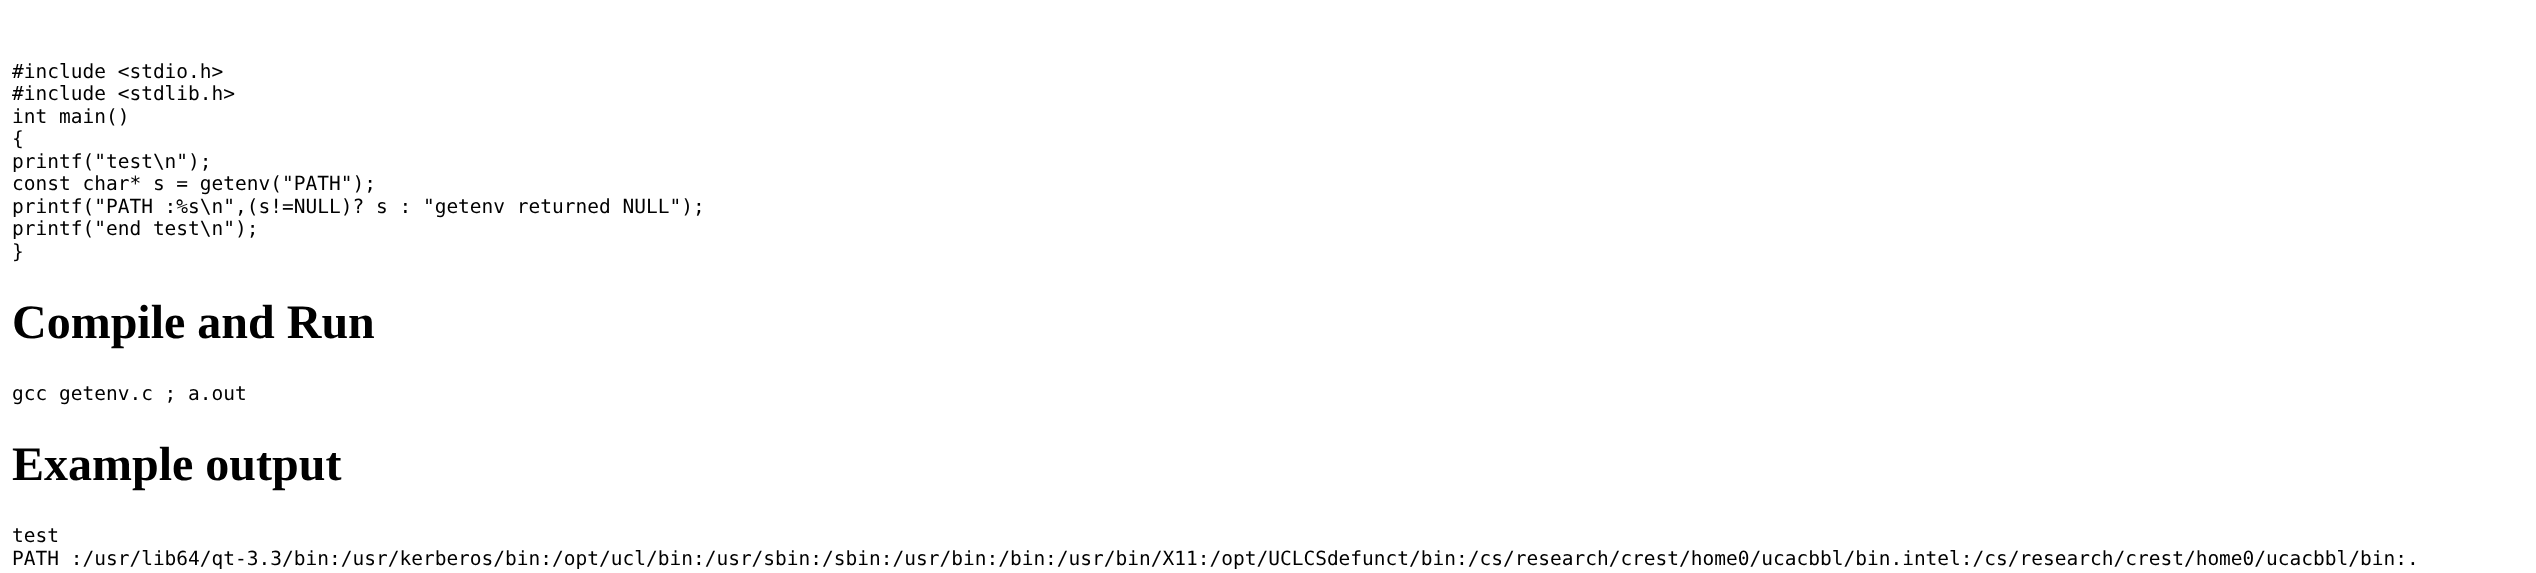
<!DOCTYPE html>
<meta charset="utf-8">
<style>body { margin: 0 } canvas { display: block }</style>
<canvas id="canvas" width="2536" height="573"></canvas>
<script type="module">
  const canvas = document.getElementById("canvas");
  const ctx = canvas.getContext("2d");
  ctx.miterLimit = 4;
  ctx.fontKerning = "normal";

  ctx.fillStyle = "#ffffff";
  ctx.fillRect(0, 0, 2536, 573);
  ctx.font = "19.5px DejaVu Sans Mono";
  ctx.fillStyle = "#000000";
  ctx.fillText("#include <stdio.h>", 12, 78);
  ctx.fillText("#include <stdlib.h>", 12, 100);
  ctx.fillText("int main()", 12, 123);
  ctx.fillText("{", 12, 145);
  ctx.fillText("printf(\"test\\n\");", 12, 168);
  ctx.fillText("const char* s = getenv(\"PATH\");", 12, 190);
  ctx.fillText("printf(\"PATH :%s\\n\",(s!=NULL)? s : \"getenv returned NULL\");", 12, 213);
  ctx.fillText("printf(\"end test\\n\");", 12, 235);
  ctx.fillText("}", 12, 258);
  ctx.font = "bold 48px Liberation Serif";
  ctx.fillText("Compile and Run", 12, 338);
  ctx.font = "19.5px DejaVu Sans Mono";
  ctx.fillText("gcc getenv.c ; a.out", 12, 400);
  ctx.font = "bold 48px Liberation Serif";
  ctx.fillText("Example output", 12, 480);
  ctx.font = "19.5px DejaVu Sans Mono";
  ctx.fillText("test", 12, 542);
  ctx.fillText("PATH :/usr/lib64/qt-3.3/bin:/usr/kerberos/bin:/opt/ucl/bin:/usr/sbin:/sbin:/usr/bin:/bin:/usr/bin/X11:/opt/UCLCSdefunct/bin:/cs/research/crest/home0/ucacbbl/bin.intel:/cs/research/crest/home0/ucacbbl/bin:.", 12, 565);
</script>
